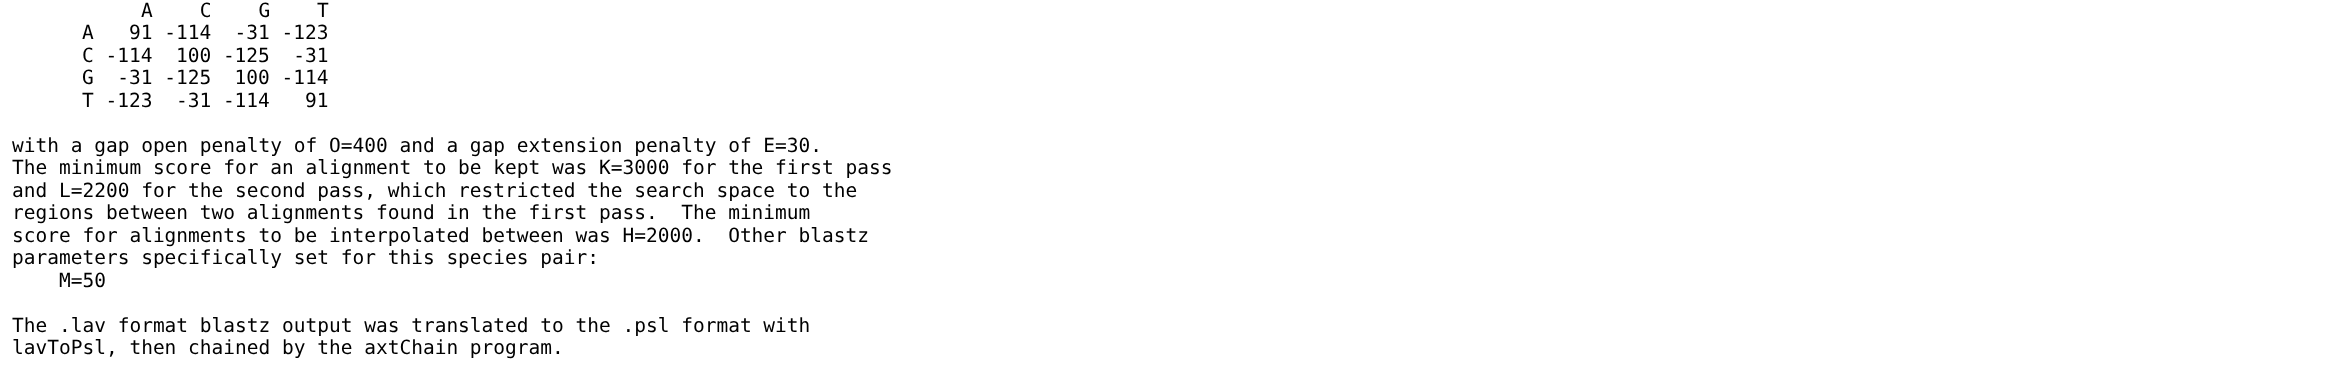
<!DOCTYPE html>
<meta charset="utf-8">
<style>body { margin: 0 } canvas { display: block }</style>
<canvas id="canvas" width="2352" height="390"></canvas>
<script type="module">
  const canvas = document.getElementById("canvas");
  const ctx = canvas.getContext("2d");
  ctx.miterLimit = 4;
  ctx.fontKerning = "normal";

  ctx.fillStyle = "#ffffff";
  ctx.fillRect(0, 0, 2352, 390);
  ctx.font = "19.5px DejaVu Sans Mono";
  ctx.fillStyle = "#000000";
  ctx.fillText("A    C    G    T", 141, 17);
  ctx.fillText("A   91 -114  -31 -123", 82, 39);
  ctx.fillText("C -114  100 -125  -31", 82, 62);
  ctx.fillText("G  -31 -125  100 -114", 82, 84);
  ctx.fillText("T -123  -31 -114   91", 82, 107);
  ctx.fillText("with a gap open penalty of O=400 and a gap extension penalty of E=30.", 12, 152);
  ctx.fillText("The minimum score for an alignment to be kept was K=3000 for the first pass", 12, 174);
  ctx.fillText("and L=2200 for the second pass, which restricted the search space to the", 12, 197);
  ctx.fillText("regions between two alignments found in the first pass.  The minimum", 12, 219);
  ctx.fillText("score for alignments to be interpolated between was H=2000.  Other blastz", 12, 242);
  ctx.fillText("parameters specifically set for this species pair:", 12, 264);
  ctx.fillText("M=50", 59, 287);
  ctx.fillText("The .lav format blastz output was translated to the .psl format with", 12, 332);
  ctx.fillText("lavToPsl, then chained by the axtChain program.", 12, 354);
</script>
